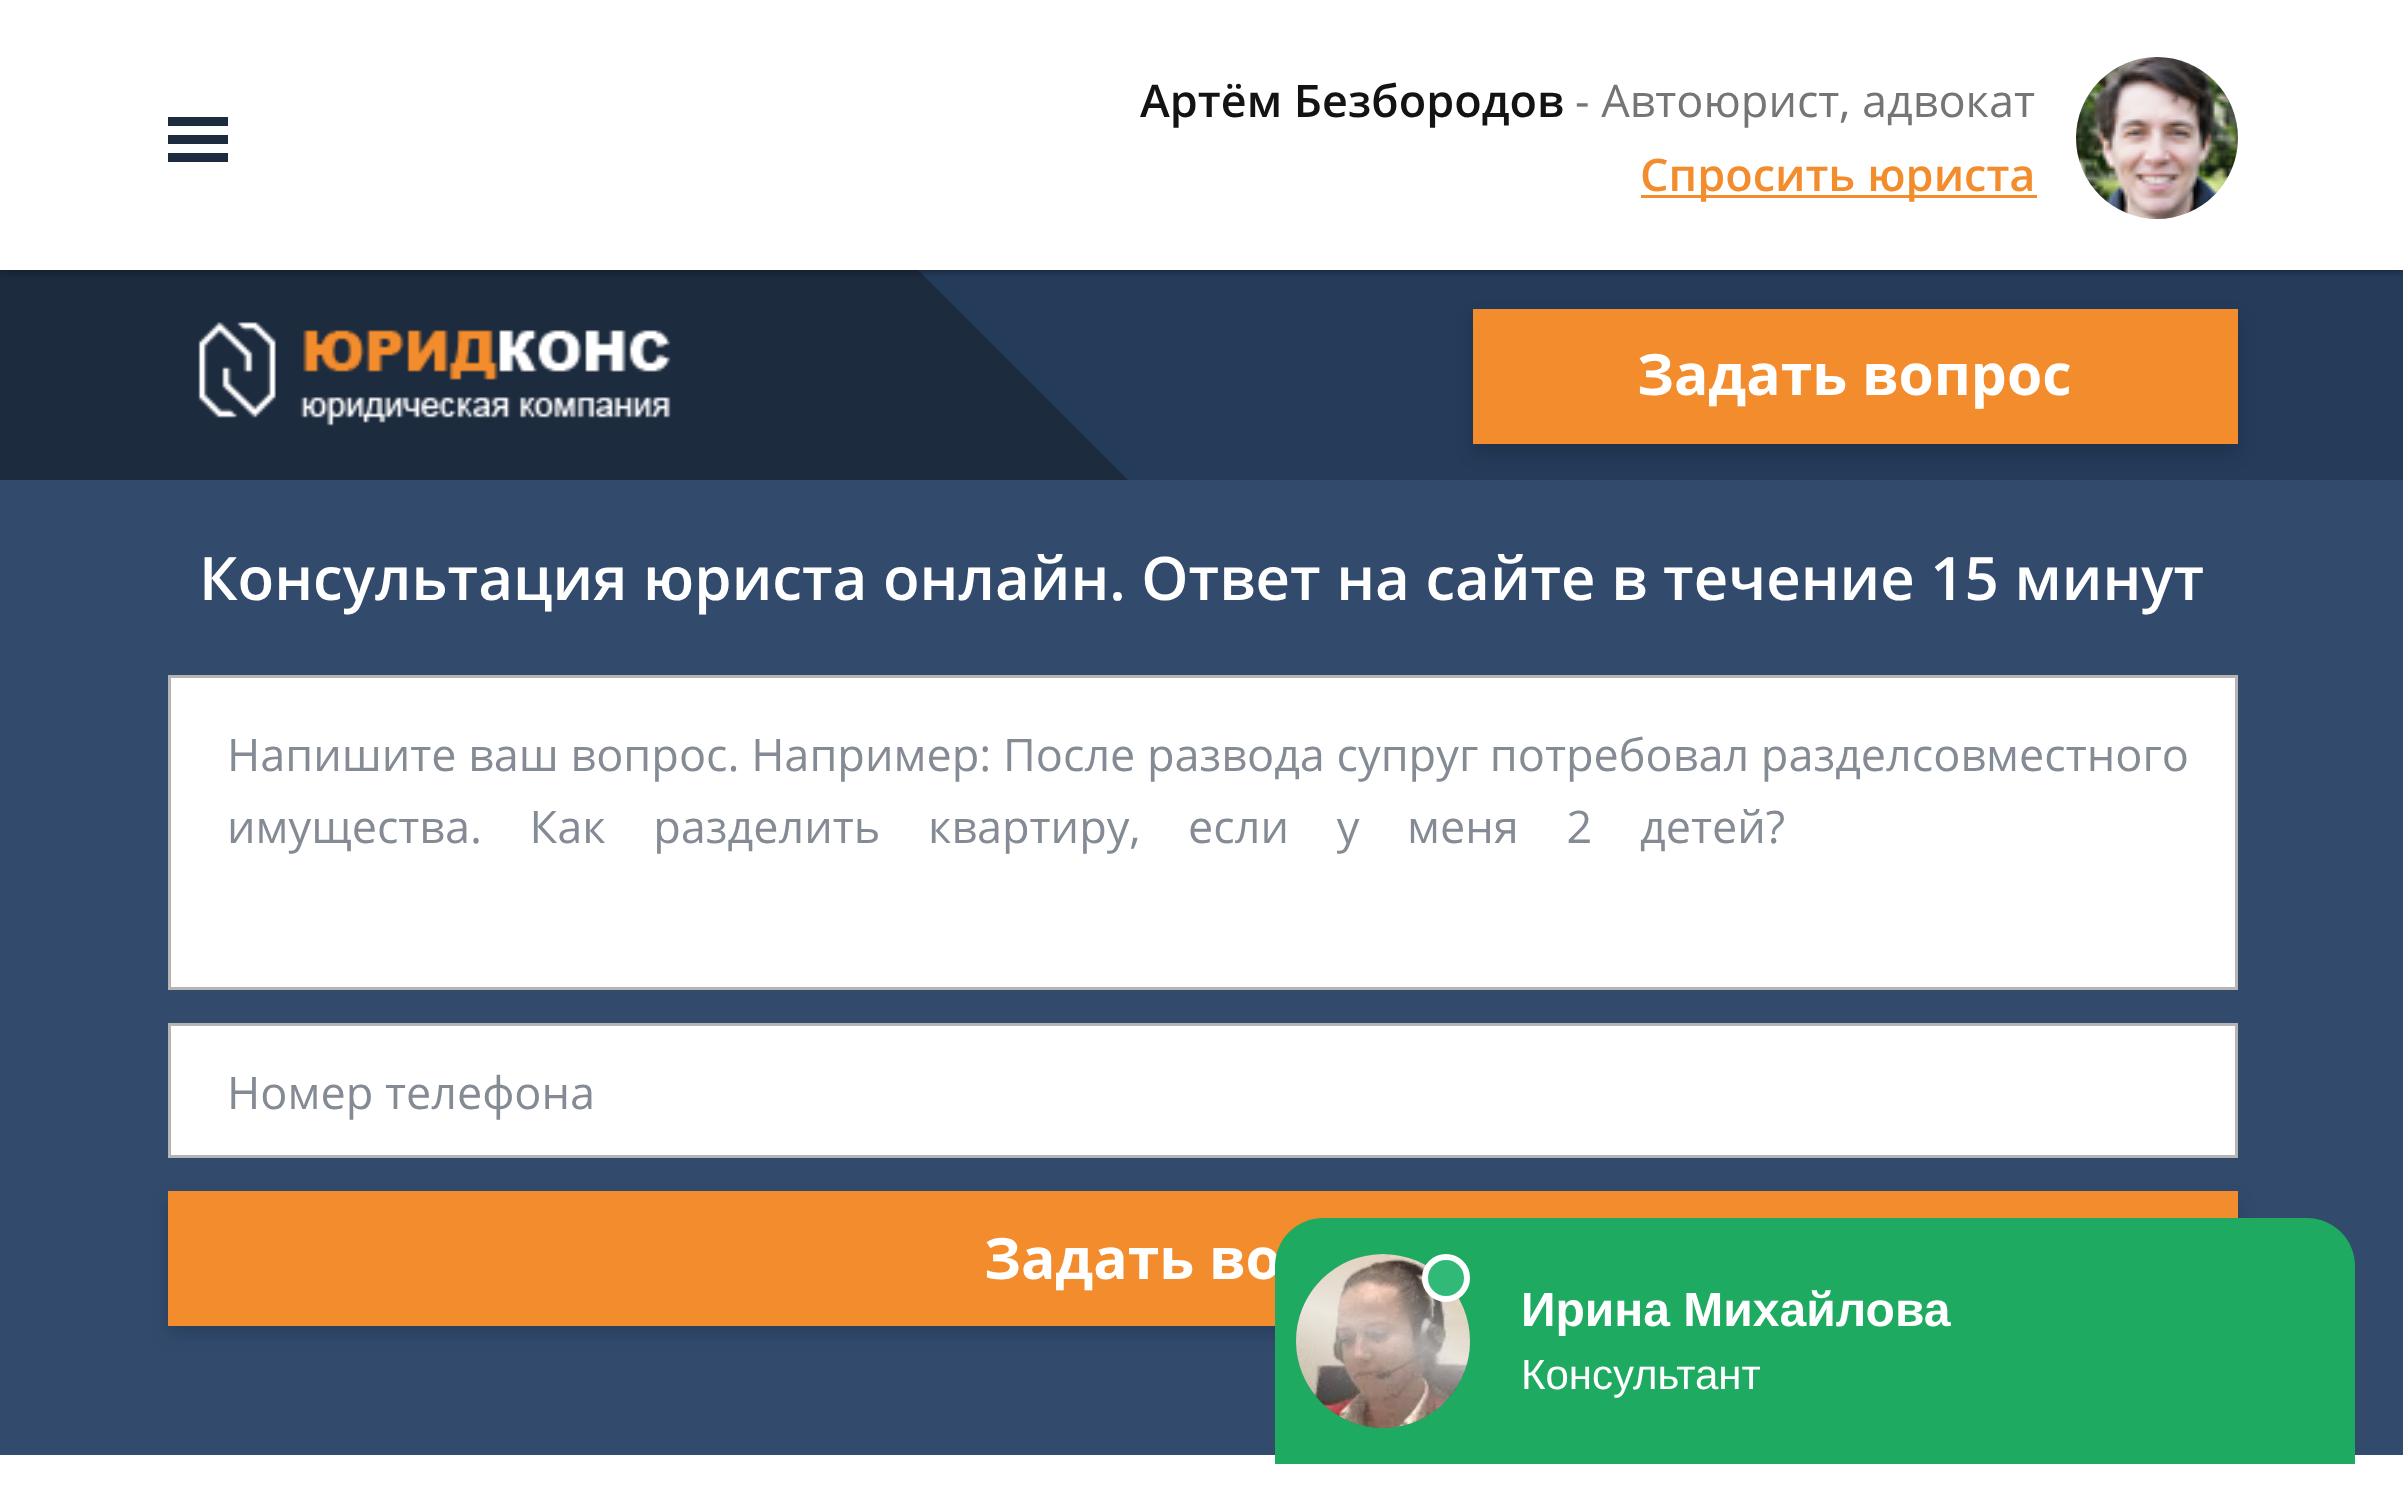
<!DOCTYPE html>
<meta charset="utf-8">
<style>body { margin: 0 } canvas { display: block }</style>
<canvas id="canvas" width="2403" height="1511"></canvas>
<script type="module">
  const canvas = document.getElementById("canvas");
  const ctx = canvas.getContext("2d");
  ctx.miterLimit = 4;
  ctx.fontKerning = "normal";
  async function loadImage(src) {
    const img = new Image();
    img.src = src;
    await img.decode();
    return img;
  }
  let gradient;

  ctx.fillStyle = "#ffffff";
  ctx.fillRect(0, 0, 2403, 1511);
  ctx.fillStyle = "#243b5a";
  ctx.fillRect(918, 270, 1485, 210);
  ctx.fillStyle = "#1d2b3e";
  ctx.fillRect(0, 270, 918, 210);
  ctx.beginPath();
  ctx.moveTo(918, 480);
  ctx.lineTo(918, 270);
  ctx.lineTo(1128, 480);
  ctx.closePath();
  ctx.fill();
  ctx.save();
  ctx.beginPath();
  ctx.rect(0, 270, 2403, 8);
  ctx.clip();
  ctx.fillStyle = "rgba(0, 0, 0, 0.5)";
  ctx.filter = "blur(4.5px)";
  ctx.beginPath();
  ctx.rect(0, 0, 2403, 270);
  ctx.fill();
  ctx.filter = "none";
  ctx.restore();
  ctx.fillRect(168, 117, 60, 9);
  ctx.fillRect(168, 135, 60, 9);
  ctx.fillRect(168, 153, 60, 9);
  ctx.font = "600 45px Open Sans";
  ctx.fillStyle = "#131313";
  ctx.fillText("Артём Безбородов", 1140, 117);
  ctx.font = "45px Open Sans";
  ctx.fillStyle = "#757575";
  ctx.fillText("- Автоюрист, адвокат", 1575, 117);
  ctx.fillStyle = "#f38c2c";
  ctx.fillRect(1641, 195, 396, 3);
  ctx.font = "600 45px Open Sans";
  ctx.fillText("Спросить юриста", 1640, 191);
  ctx.drawImage(await loadImage("img1.png"), 2076, 57, 162, 162);
  ctx.drawImage(await loadImage("img2.png"), 198, 322, 473, 104);
  ctx.fillStyle = "#324b6d";
  ctx.fillRect(0, 480, 2403, 975);
  ctx.fillStyle = "rgba(0, 0, 0, 0.16)";
  ctx.filter = "blur(9px)";
  ctx.beginPath();
  ctx.rect(1473, 318, 765, 135);
  ctx.fill();
  ctx.filter = "none";
  ctx.fillStyle = "#f38c2c";
  ctx.fillRect(1473, 309, 765, 135);
  ctx.font = "bold 57px Open Sans";
  ctx.fillStyle = "#ffffff";
  ctx.fillText("Задать вопрос", 1637, 395);
  ctx.font = "600 60px Open Sans";
  ctx.fillText("Консультация юриста онлайн. Ответ на сайте в течение 15 минут", 199, 600);
  ctx.beginPath();
  ctx.rect(169.5, 676.5, 2067, 312);
  ctx.fill();
  ctx.strokeStyle = "#b8b4b4";
  ctx.lineWidth = 3;
  ctx.stroke();
  ctx.font = "45px Open Sans";
  ctx.fillStyle = "#848b94";
  ctx.fillText("Напишите ваш вопрос. Например: После развода супруг потребовал разделсовместного", 227, 771);
  ctx.wordSpacing = "36px";
  ctx.fillText("имущества. Как разделить квартиру, если у меня 2 детей?", 227, 843);
  ctx.fillStyle = "#ffffff";
  ctx.beginPath();
  ctx.rect(169.5, 1024.5, 2067, 132);
  ctx.fill();
  ctx.stroke();
  ctx.wordSpacing = "0px";
  ctx.fillStyle = "#848b94";
  ctx.fillText("Номер телефона", 227, 1109);
  ctx.fillStyle = "rgba(0, 0, 0, 0.16)";
  ctx.filter = "blur(9px)";
  ctx.beginPath();
  ctx.rect(168, 1200, 2070, 135);
  ctx.fill();
  ctx.filter = "none";
  ctx.fillStyle = "#f38c2c";
  ctx.fillRect(168, 1191, 2070, 135);
  ctx.font = "bold 57px Open Sans";
  ctx.fillStyle = "#ffffff";
  ctx.fillText("Задать во", 984, 1279);
  ctx.fillStyle = "#1eaa61";
  ctx.beginPath();
  ctx.roundRect(1275, 1218, 1080, 246, [48, 48, 0, 0]);
  ctx.fill();
  ctx.fillStyle = "#178049";
  ctx.beginPath();
  ctx.arc(1383, 1341, 87, 0, Math.PI * 2);
  ctx.fill();
  ctx.drawImage(await loadImage("img3.png"), 1296, 1254, 174, 174);
  gradient = ctx.createLinearGradient(1413, 1270, 1353, 1433);
  gradient.addColorStop(0, "rgba(255, 255, 255, 0)");
  gradient.addColorStop(0.4, "rgba(255, 255, 255, 0.6)");
  gradient.addColorStop(0.6, "rgba(255, 255, 255, 0.36)");
  gradient.addColorStop(1, "rgba(255, 255, 255, 0)");
  ctx.fillStyle = gradient;
  ctx.beginPath();
  ctx.moveTo(1372, 1255);
  ctx.lineTo(1447, 1282);
  ctx.bezierCurveTo(1461, 1297, 1470, 1318, 1470, 1341);
  ctx.bezierCurveTo(1470, 1389, 1431, 1428, 1383, 1428);
  ctx.bezierCurveTo(1335, 1428, 1296, 1389, 1296, 1341);
  ctx.bezierCurveTo(1296, 1297, 1329, 1260, 1372, 1255);
  ctx.closePath();
  ctx.fill();
  ctx.fillStyle = "#31b978";
  ctx.beginPath();
  ctx.arc(1446, 1278, 21, 0, Math.PI * 2);
  ctx.fill();
  ctx.strokeStyle = "#ffffff";
  ctx.lineWidth = 6;
  ctx.stroke();
  ctx.font = "bold 48px Liberation Sans";
  ctx.fillStyle = "#ffffff";
  ctx.fillText("Ирина Михайлова", 1521, 1326);
  ctx.font = "42px Liberation Sans";
  ctx.fillText("Консультант", 1521, 1389);
</script>
